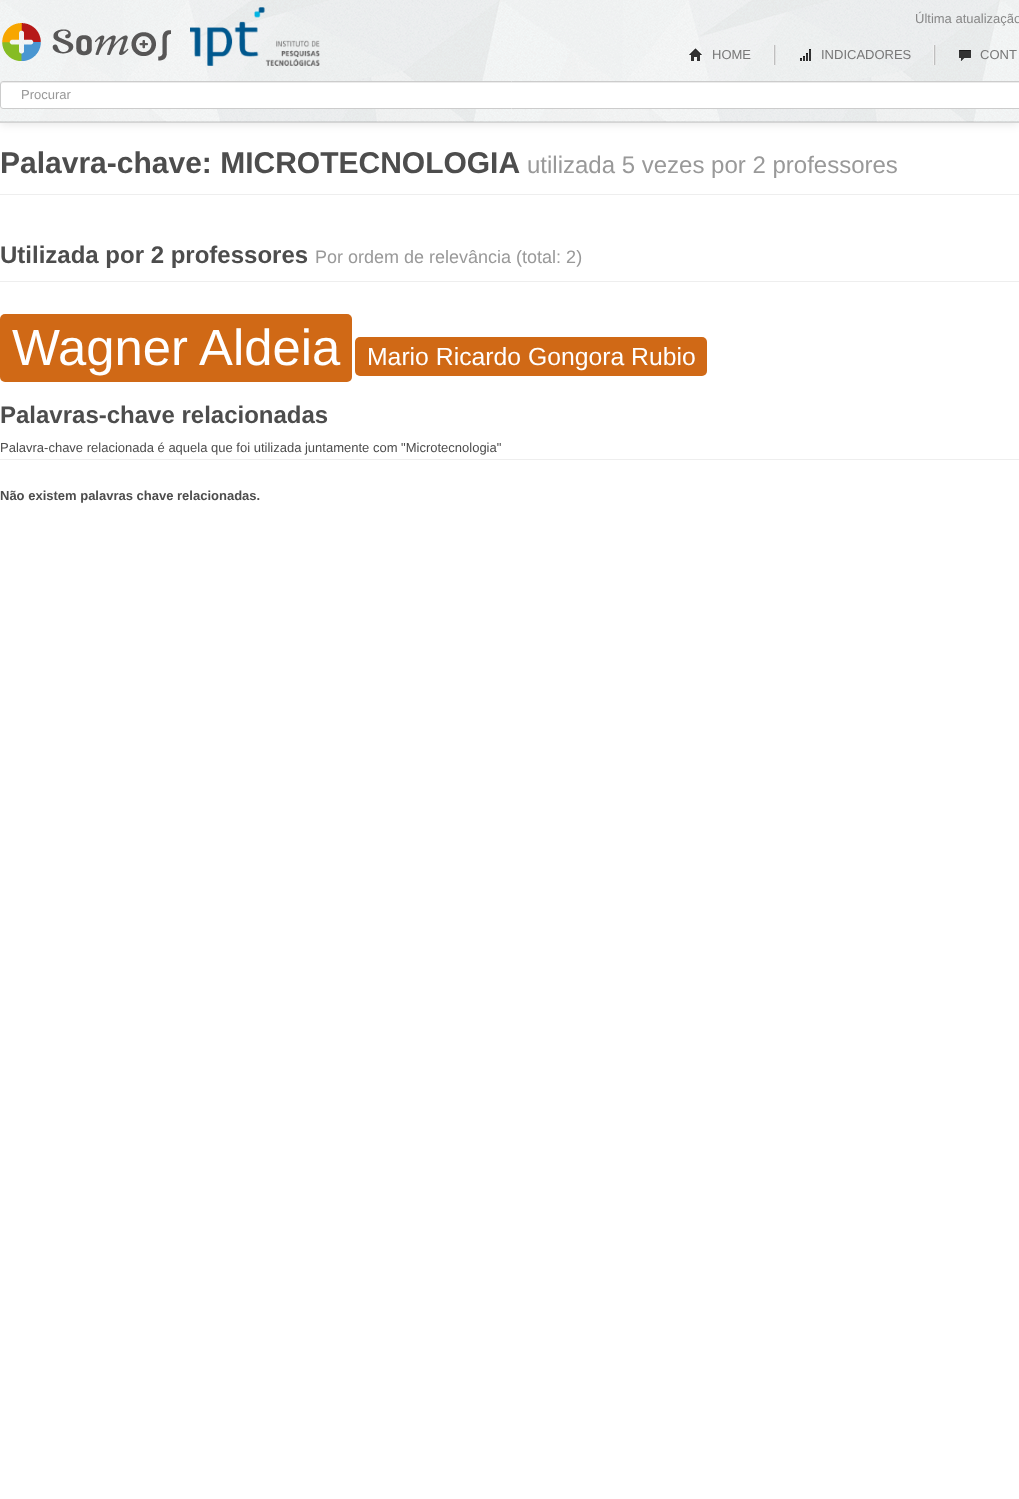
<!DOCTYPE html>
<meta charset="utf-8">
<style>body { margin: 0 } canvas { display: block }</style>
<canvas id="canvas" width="1019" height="1499"></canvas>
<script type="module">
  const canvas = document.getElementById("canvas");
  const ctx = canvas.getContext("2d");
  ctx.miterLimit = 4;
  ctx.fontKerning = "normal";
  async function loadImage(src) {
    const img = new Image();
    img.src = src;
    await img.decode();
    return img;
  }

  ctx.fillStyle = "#ffffff";
  ctx.fillRect(0, 0, 1019, 1499);
  ctx.fillStyle = "rgba(0, 0, 0, 0.1)";
  ctx.filter = "blur(5px)";
  ctx.beginPath();
  ctx.rect(0, 1, 1019, 123);
  ctx.fill();
  ctx.filter = "none";
  ctx.drawImage(await loadImage("img1.png"), 0, 0, 1019, 122);
  ctx.fillRect(0, 121, 1019, 1);
  ctx.fillStyle = "#d4d4d4";
  ctx.fillRect(0, 122, 1019, 1);
  ctx.drawImage(await loadImage("img2.png"), 190, 7, 130, 59);
  ctx.font = "13px Liberation Sans";
  ctx.fillStyle = "#888888";
  ctx.fillText("Última atualização", 915, 23);
  ctx.drawImage(await loadImage("img3.png"), 2, 23, 169, 38);
  ctx.drawImage(await loadImage("img4.png"), 689, 48, 13, 13);
  ctx.fillStyle = "#777777";
  ctx.fillText("HOME", 712, 59);
  ctx.fillStyle = "#bfbfbf";
  ctx.fillRect(774, 45, 1, 20);
  ctx.fillStyle = "#dfdfdf";
  ctx.fillRect(775, 45, 1, 20);
  ctx.fillStyle = "#f2f2f2";
  ctx.fillRect(773, 45, 1, 20);
  ctx.drawImage(await loadImage("img5.png"), 800, 49, 11, 13);
  ctx.fillStyle = "#777777";
  ctx.fillText("INDICADORES", 821, 59);
  ctx.fillStyle = "#bfbfbf";
  ctx.fillRect(934, 45, 1, 20);
  ctx.fillStyle = "#dfdfdf";
  ctx.fillRect(935, 45, 1, 20);
  ctx.fillStyle = "#f2f2f2";
  ctx.fillRect(933, 45, 1, 20);
  ctx.drawImage(await loadImage("img6.png"), 959, 50, 12, 12);
  ctx.fillStyle = "#777777";
  ctx.fillText("CONT", 980, 59);
  ctx.fillStyle = "#ffffff";
  ctx.beginPath();
  ctx.roundRect(0, 81, 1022, 28, 3);
  ctx.fill();
  ctx.fillStyle = "#ececec";
  ctx.beginPath();
  ctx.moveTo(3, 83);
  ctx.lineTo(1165, 83);
  ctx.bezierCurveTo(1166, 83, 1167, 84, 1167, 85);
  ctx.lineTo(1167, 83);
  ctx.lineTo(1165, 82);
  ctx.lineTo(3, 82);
  ctx.bezierCurveTo(2, 82, 1, 83, 1, 84);
  ctx.lineTo(1, 85);
  ctx.bezierCurveTo(1, 84, 2, 83, 3, 83);
  ctx.closePath();
  ctx.fill();
  ctx.beginPath();
  ctx.roundRect(0.5, 81.5, 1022, 27, 2.5);
  ctx.strokeStyle = "#cccccc";
  ctx.stroke();
  ctx.fillStyle = "#999999";
  ctx.fillText("Procurar", 21, 99);
  ctx.fillStyle = "#eeeeee";
  ctx.fillRect(0, 194, 1019, 1);
  ctx.font = "bold 30px Liberation Sans";
  ctx.fillStyle = "#4d4d4d";
  ctx.fillText("Palavra-chave: MICROTECNOLOGIA", 0, 173);
  ctx.font = "24px Liberation Sans";
  ctx.fillStyle = "#999999";
  ctx.fillText("utilizada 5 vezes por 2 professores", 527, 173);
  ctx.fillStyle = "#eeeeee";
  ctx.fillRect(0, 281, 1019, 1);
  ctx.font = "bold 24px Liberation Sans";
  ctx.fillStyle = "#4d4d4d";
  ctx.fillText("Utilizada por 2 professores", 0, 263);
  ctx.font = "18px Liberation Sans";
  ctx.fillStyle = "#999999";
  ctx.fillText("Por ordem de relevância (total: 2)", 315, 263);
  ctx.fillStyle = "#d06916";
  ctx.beginPath();
  ctx.roundRect(0, 314, 352, 68, 5);
  ctx.fill();
  ctx.font = "50.75px Liberation Sans";
  ctx.fillStyle = "#ffffff";
  ctx.fillText("Wagner Aldeia", 12, 365);
  ctx.fillStyle = "#d06916";
  ctx.beginPath();
  ctx.roundRect(355, 337, 352, 39, 5);
  ctx.fill();
  ctx.font = "24.75px Liberation Sans";
  ctx.fillStyle = "#ffffff";
  ctx.fillText("Mario Ricardo Gongora Rubio", 367, 365);
  ctx.fillStyle = "#eeeeee";
  ctx.fillRect(0, 459, 1019, 1);
  ctx.font = "bold 24px Liberation Sans";
  ctx.fillStyle = "#4d4d4d";
  ctx.fillText("Palavras-chave relacionadas", 0, 423);
  ctx.font = "13px Liberation Sans";
  ctx.fillText("Palavra-chave relacionada é aquela que foi utilizada juntamente com \"Microtecnologia\"", 0, 452);
  ctx.font = "bold 13px Liberation Sans";
  ctx.fillText("Não existem palavras chave relacionadas.", 0, 500);
</script>
